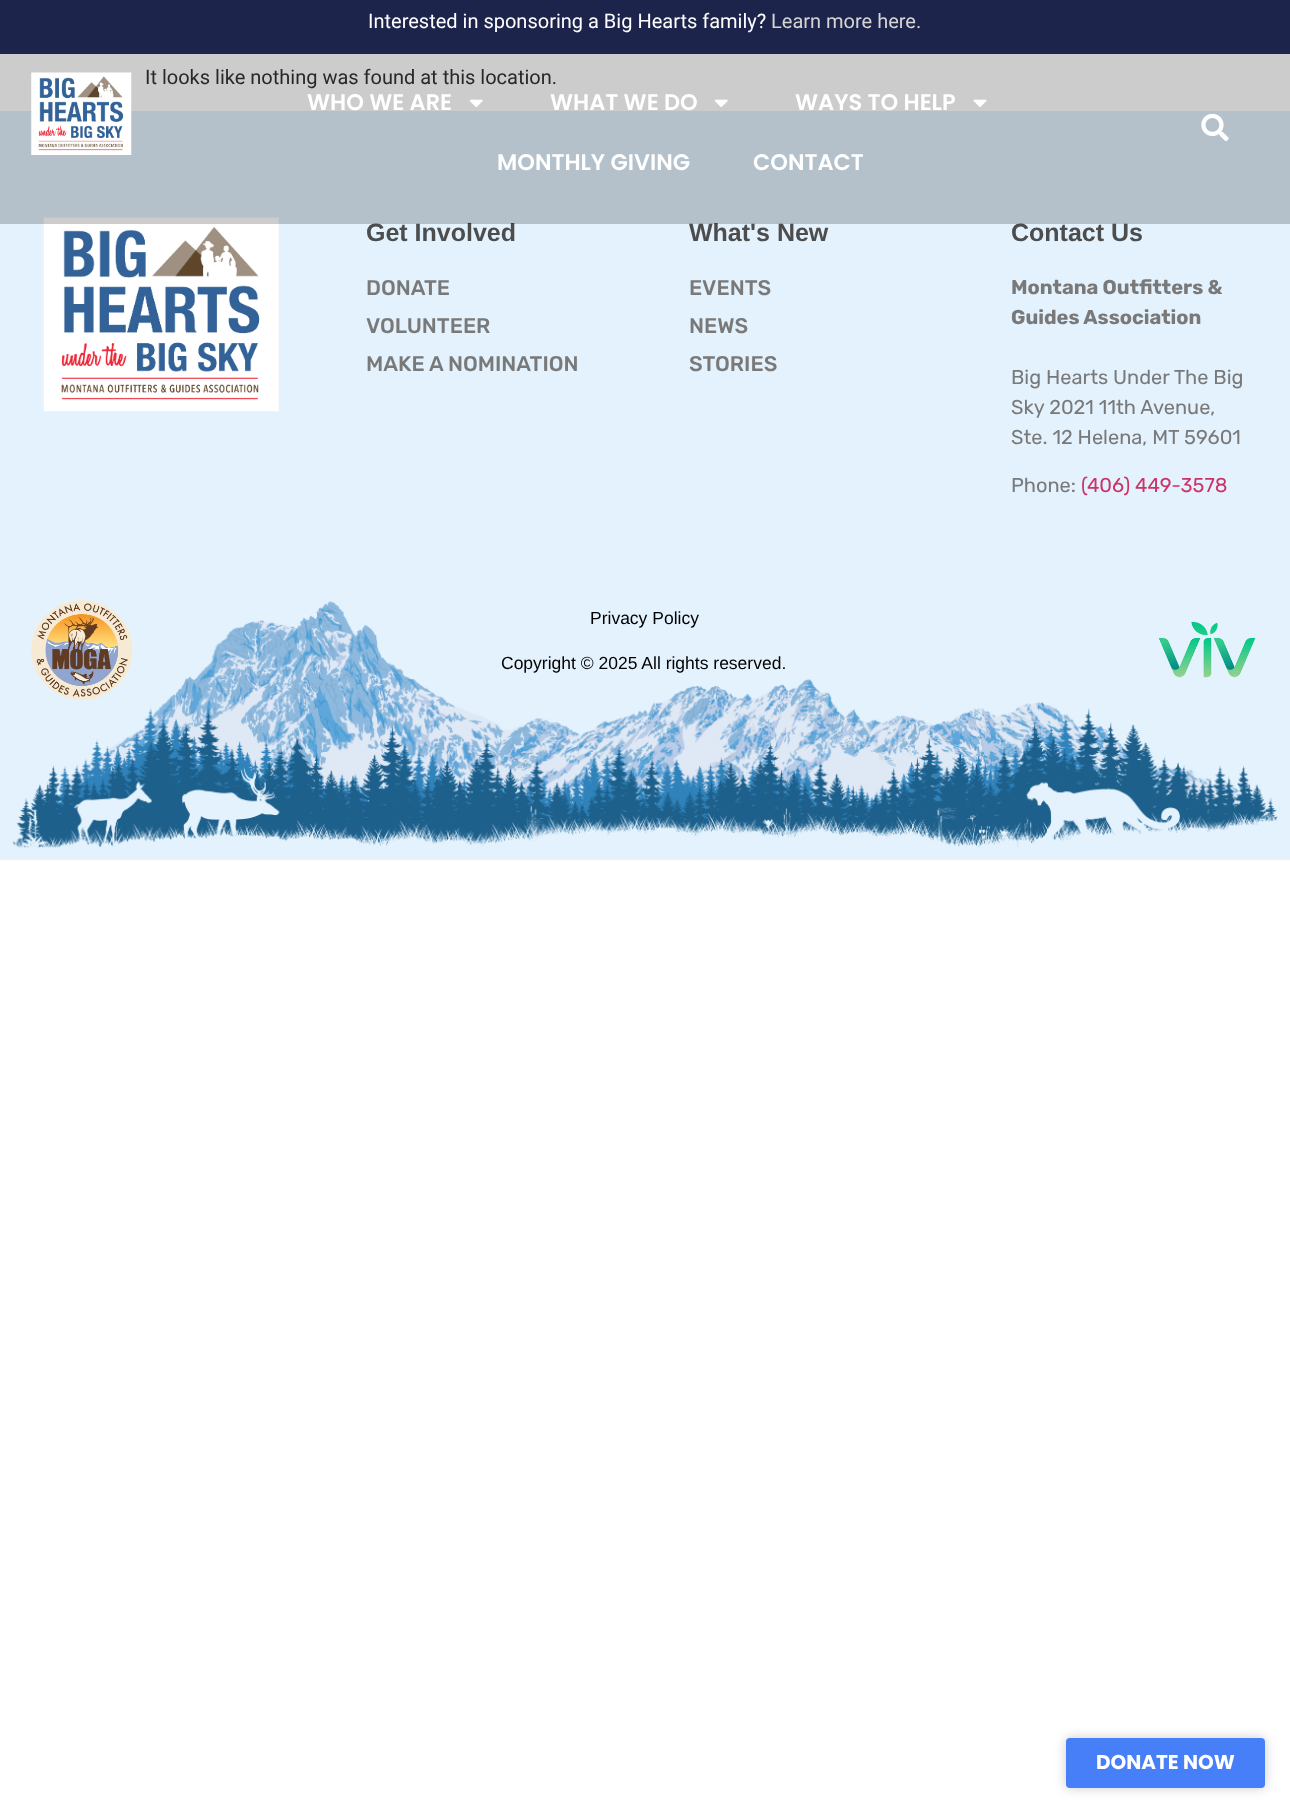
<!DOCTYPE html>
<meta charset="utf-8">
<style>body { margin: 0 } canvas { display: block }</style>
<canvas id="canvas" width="1290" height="1812"></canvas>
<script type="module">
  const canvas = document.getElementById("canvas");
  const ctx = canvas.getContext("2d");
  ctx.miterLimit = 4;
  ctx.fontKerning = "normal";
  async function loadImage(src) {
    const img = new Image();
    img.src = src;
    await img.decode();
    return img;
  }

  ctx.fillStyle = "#ffffff";
  ctx.fillRect(0, 0, 1290, 1812);
  ctx.fillStyle = "#1c244b";
  ctx.fillRect(0, 0, 1290, 54);
  ctx.font = "20px Roboto";
  ctx.fillStyle = "#ffffff";
  ctx.fillText("Interested in sponsoring a Big Hearts family?", 368, 28);
  ctx.fillStyle = "#d5d5d5";
  ctx.fillText("Learn more here.", 771, 28);
  ctx.fillStyle = "#333333";
  ctx.fillText("It looks like nothing was found at this location.", 145, 84);
  ctx.fillStyle = "#e3f2fd";
  ctx.fillRect(0, 111, 1290, 749);
  ctx.drawImage(await loadImage("img5.png"), 43, 217, 236, 195);
  ctx.font = "bold 25px Liberation Sans";
  ctx.fillStyle = "#4d4d4d";
  ctx.fillText("Get Involved", 366, 241);
  ctx.fillText("What's New", 689, 241);
  ctx.fillText("Contact Us", 1011, 241);
  ctx.fillStyle = "rgba(0, 0, 0, 0.2)";
  ctx.fillRect(0, 54, 1290, 170);
  ctx.drawImage(await loadImage("img1.png"), 31, 72, 101, 83);
  ctx.font = "600 22.5px Poppins";
  ctx.fillStyle = "#ffffff";
  ctx.fillText("WHO WE ARE", 307, 110);
  ctx.drawImage(await loadImage("img2.png"), 469, 99, 14, 8);
  ctx.fillText("WHAT WE DO", 550, 110);
  ctx.drawImage(await loadImage("img2.png"), 714, 99, 14, 8);
  ctx.fillText("WAYS TO HELP", 795, 110);
  ctx.drawImage(await loadImage("img3.png"), 973, 99, 14, 8);
  ctx.fillText("MONTHLY GIVING", 497, 170);
  ctx.fillText("CONTACT", 753, 170);
  ctx.drawImage(await loadImage("img4.png"), 1201, 114, 28, 27);
  ctx.font = "500 21.25px Rubik";
  ctx.fillStyle = "#797979";
  ctx.fillText("DONATE", 366, 295);
  ctx.fillText("VOLUNTEER", 366, 333);
  ctx.fillText("MAKE A NOMINATION", 366, 371);
  ctx.fillText("EVENTS", 689, 295);
  ctx.fillText("NEWS", 689, 333);
  ctx.fillText("STORIES", 689, 371);
  ctx.font = "bold 20px Rubik";
  ctx.fillText("Montana Outfitters &", 1011, 294);
  ctx.fillText("Guides Association", 1011, 324);
  ctx.font = "20px Rubik";
  ctx.fillText("Big Hearts Under The Big", 1011, 384);
  ctx.fillText("Sky 2021 11th Avenue,", 1011, 414);
  ctx.fillText("Ste. 12 Helena, MT 59601", 1011, 444);
  ctx.fillText("Phone:", 1011, 492);
  ctx.fillStyle = "#cc3366";
  ctx.fillText("(406) 449-3578", 1081, 492);
  ctx.drawImage(await loadImage("img8.png"), 13, 601, 1265, 247);
  ctx.drawImage(await loadImage("img6.png"), 31, 600, 102, 100);
  ctx.font = "17.5px Liberation Sans";
  ctx.fillStyle = "#000000";
  ctx.fillText("Privacy Policy", 590, 624);
  ctx.fillText("Copyright © 2025 All rights reserved.", 501, 669);
  ctx.drawImage(await loadImage("img7.png"), 1159, 621, 97, 57);
  ctx.fillStyle = "rgba(0, 0, 0, 0.2)";
  ctx.filter = "blur(6px)";
  ctx.beginPath();
  ctx.roundRect(1066, 1738, 199, 50, 4);
  ctx.fill();
  ctx.filter = "none";
  ctx.fillStyle = "#467ff7";
  ctx.beginPath();
  ctx.roundRect(1066, 1738, 199, 50, 4);
  ctx.fill();
  ctx.font = "bold 20px Poppins";
  ctx.fillStyle = "#ffffff";
  ctx.fillText("DONATE NOW", 1096, 1769);
</script>
